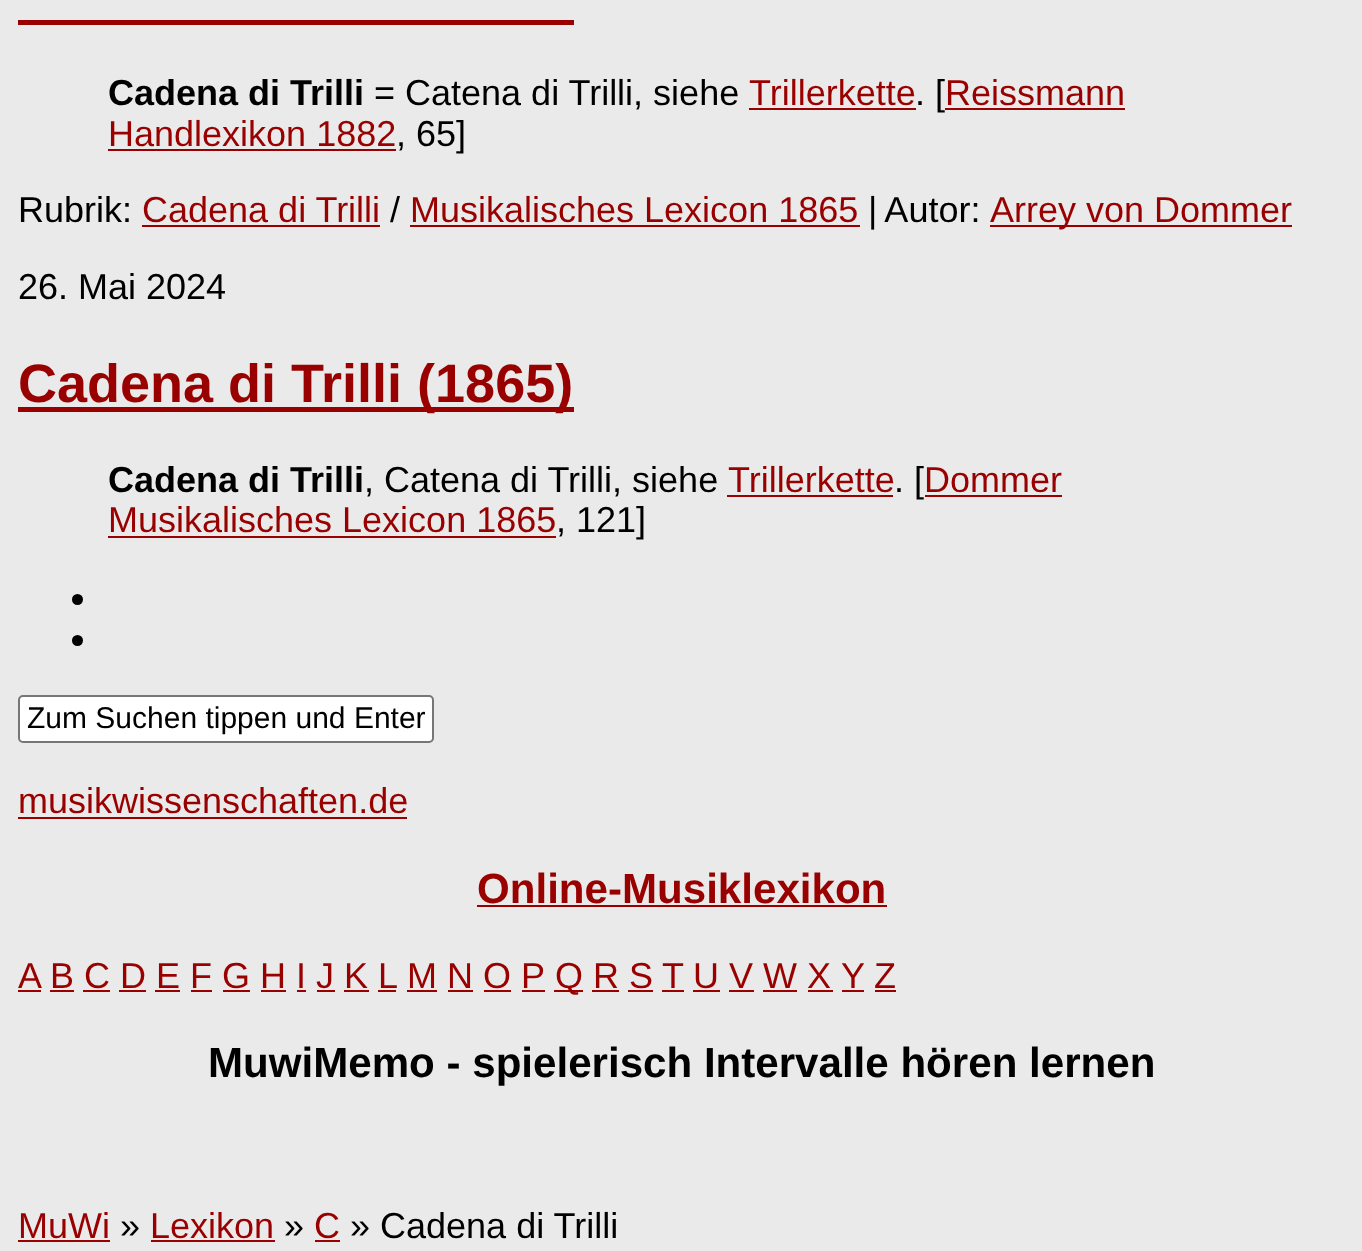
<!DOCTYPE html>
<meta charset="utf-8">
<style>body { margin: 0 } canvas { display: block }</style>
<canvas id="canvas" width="1362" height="1251"></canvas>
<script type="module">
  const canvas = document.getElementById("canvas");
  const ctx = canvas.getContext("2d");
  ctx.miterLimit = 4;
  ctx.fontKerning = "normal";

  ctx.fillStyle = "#eaeaea";
  ctx.fillRect(0, 0, 1362, 1251);
  ctx.fillStyle = "#990000";
  ctx.fillRect(18, 20, 556, 5);
  ctx.font = "bold 36px Liberation Sans";
  ctx.fillStyle = "#000000";
  ctx.fillText("Cadena di Trilli", 108, 105);
  ctx.font = "36px Liberation Sans";
  ctx.fillText("= Catena di Trilli, siehe", 374, 105);
  ctx.fillStyle = "#990000";
  ctx.fillText("Trillerkette", 749, 105);
  ctx.fillRect(749, 108, 167, 2);
  ctx.fillStyle = "#000000";
  ctx.fillText(". [", 915, 105);
  ctx.fillStyle = "#990000";
  ctx.fillText("Reissmann", 945, 105);
  ctx.fillRect(945, 108, 180, 2);
  ctx.fillText("Handlexikon 1882", 108, 146);
  ctx.fillStyle = "#000000";
  ctx.fillText(", 65]", 396, 146);
  ctx.fillStyle = "#990000";
  ctx.fillRect(108, 149, 288, 2);
  ctx.fillStyle = "#000000";
  ctx.fillText("Rubrik:", 18, 222);
  ctx.fillStyle = "#990000";
  ctx.fillText("Cadena di Trilli", 142, 222);
  ctx.fillRect(142, 225, 238, 2);
  ctx.fillStyle = "#000000";
  ctx.fillText("/", 390, 222);
  ctx.fillStyle = "#990000";
  ctx.fillText("Musikalisches Lexicon 1865", 410, 222);
  ctx.fillRect(410, 225, 450, 2);
  ctx.wordSpacing = "-1px";
  ctx.fillStyle = "#000000";
  ctx.fillText("| Autor:", 868, 222);
  ctx.fillStyle = "#990000";
  ctx.fillRect(990, 225, 302, 2);
  ctx.wordSpacing = "0px";
  ctx.fillText("Arrey von Dommer", 990, 222);
  ctx.fillStyle = "#000000";
  ctx.fillText("26. Mai 2024", 18, 299);
  ctx.fillStyle = "#990000";
  ctx.fillRect(18, 407, 556, 5);
  ctx.font = "bold 54px Liberation Sans";
  ctx.fillText("Cadena di Trilli (1865)", 18, 402);
  ctx.font = "bold 36px Liberation Sans";
  ctx.fillStyle = "#000000";
  ctx.fillText("Cadena di Trilli", 108, 492);
  ctx.font = "36px Liberation Sans";
  ctx.fillText(", Catena di Trilli, siehe", 364, 492);
  ctx.fillStyle = "#990000";
  ctx.fillText("Trillerkette", 728, 492);
  ctx.fillRect(727, 495, 166, 2);
  ctx.fillStyle = "#000000";
  ctx.fillText(". [", 894, 492);
  ctx.fillStyle = "#990000";
  ctx.fillText("Dommer", 924, 492);
  ctx.fillRect(925, 495, 137, 2);
  ctx.fillText("Musikalisches Lexicon 1865", 108, 532);
  ctx.fillStyle = "#000000";
  ctx.fillText(", 121]", 556, 532);
  ctx.fillStyle = "#990000";
  ctx.fillRect(108, 536, 448, 2);
  ctx.fillStyle = "#000000";
  ctx.beginPath();
  ctx.arc(77.5, 599.5, 5.5, 0, Math.PI * 2);
  ctx.fill();
  ctx.beginPath();
  ctx.arc(77.5, 640.5, 5.5, 0, Math.PI * 2);
  ctx.fill();
  ctx.fillStyle = "#ffffff";
  ctx.beginPath();
  ctx.roundRect(19, 696, 414, 46, 4);
  ctx.fill();
  ctx.strokeStyle = "#767676";
  ctx.lineWidth = 2;
  ctx.stroke();
  ctx.font = "30px Liberation Sans";
  ctx.fillStyle = "#000000";
  ctx.fillText("Zum Suchen tippen und Enter", 27, 728);
  ctx.font = "36px Liberation Sans";
  ctx.fillStyle = "#990000";
  ctx.fillText("musikwissenschaften.de", 18, 813);
  ctx.fillRect(18, 817, 389, 2);
  ctx.font = "bold 42.1px Liberation Sans";
  ctx.fillText("Online-Musiklexikon", 477, 903);
  ctx.fillRect(477, 905, 410, 2);
  ctx.font = "36px Liberation Sans";
  ctx.fillText("A", 18, 988);
  ctx.fillRect(18, 990, 23, 2);
  ctx.fillText("B C D E F G H I J K L", 50, 988);
  ctx.fillRect(50, 990, 24, 2);
  ctx.fillText("M N O P", 407, 988);
  ctx.fillRect(407, 990, 30, 2);
  ctx.fillRect(554, 990, 29, 2);
  ctx.fillText("Q R S", 555, 988);
  ctx.fillText("T", 662, 988);
  ctx.fillRect(662, 990, 22, 2);
  ctx.fillText("U V W X", 693, 988);
  ctx.fillRect(693, 990, 27, 2);
  ctx.fillText("Y", 841, 988);
  ctx.fillRect(842, 990, 22, 2);
  ctx.fillText("Z", 874, 988);
  ctx.fillRect(875, 990, 21, 2);
  ctx.fillRect(83, 990, 27, 2);
  ctx.fillRect(119, 990, 27, 2);
  ctx.fillRect(155, 990, 25, 2);
  ctx.fillRect(191, 990, 21, 2);
  ctx.fillRect(223, 990, 27, 2);
  ctx.fillRect(261, 990, 25, 2);
  ctx.fillRect(297, 990, 9, 2);
  ctx.fillRect(317, 990, 18, 2);
  ctx.fillRect(344, 990, 25, 2);
  ctx.fillRect(378, 990, 18, 2);
  ctx.fillRect(448, 990, 25, 2);
  ctx.fillRect(484, 990, 27, 2);
  ctx.fillRect(522, 990, 23, 2);
  ctx.fillRect(592, 990, 27, 2);
  ctx.fillRect(628, 990, 25, 2);
  ctx.fillRect(729, 990, 25, 2);
  ctx.fillRect(763, 990, 34, 2);
  ctx.fillRect(808, 990, 25, 2);
  ctx.font = "bold 42.1px Liberation Sans";
  ctx.fillStyle = "#000000";
  ctx.fillText("MuwiMemo - spielerisch Intervalle hören lernen", 208, 1077);
  ctx.font = "36px Liberation Sans";
  ctx.fillStyle = "#990000";
  ctx.fillText("MuWi", 18, 1238);
  ctx.fillRect(18, 1240, 92, 2);
  ctx.fillStyle = "#000000";
  ctx.fillText("»", 120, 1238);
  ctx.fillStyle = "#990000";
  ctx.fillText("Lexikon", 150, 1238);
  ctx.fillRect(151, 1240, 124, 2);
  ctx.fillStyle = "#000000";
  ctx.fillText("»", 284, 1238);
  ctx.fillStyle = "#990000";
  ctx.fillText("C", 314, 1238);
  ctx.fillRect(315, 1240, 25, 2);
  ctx.fillStyle = "#000000";
  ctx.fillText("» Cadena di Trilli", 350, 1238);
</script>
